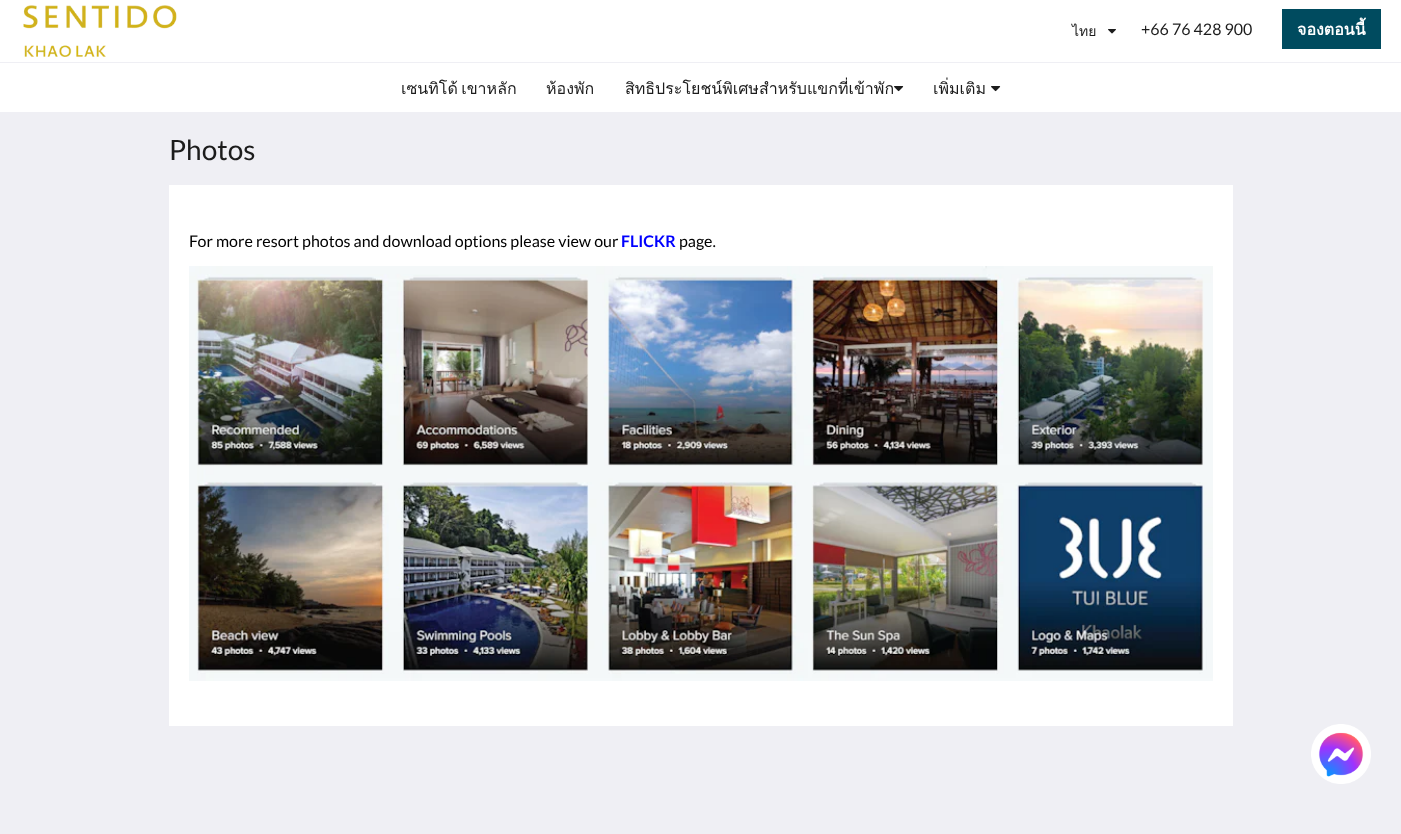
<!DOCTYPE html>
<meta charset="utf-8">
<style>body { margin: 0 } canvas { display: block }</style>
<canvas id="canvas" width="1401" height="834"></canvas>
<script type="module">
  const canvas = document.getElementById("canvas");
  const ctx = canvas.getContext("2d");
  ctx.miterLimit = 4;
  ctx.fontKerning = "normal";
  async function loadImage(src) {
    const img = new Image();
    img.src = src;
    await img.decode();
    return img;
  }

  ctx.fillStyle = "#efeff4";
  ctx.fillRect(0, 0, 1401, 834);
  ctx.fillStyle = "#ffffff";
  ctx.fillRect(0, 0, 1401, 62);
  ctx.drawImage(await loadImage("img1.png"), 23, 5, 154, 52);
  ctx.font = "14px Loma";
  ctx.fillStyle = "#1c1c1c";
  ctx.fillText("ไทย", 1072, 36);
  ctx.drawImage(await loadImage("img2.png"), 1108, 29, 8, 5);
  ctx.font = "16px Lato";
  ctx.fillText("+66 76 428 900", 1141, 35);
  ctx.fillStyle = "#004b5f";
  ctx.fillRect(1282, 9, 99, 40);
  ctx.font = "bold 16px Loma";
  ctx.fillStyle = "#ffffff";
  ctx.fillText("จองตอนนี้", 1297, 35);
  ctx.fillRect(0, 63, 1401, 49);
  ctx.wordSpacing = "-2px";
  ctx.font = "16px Loma";
  ctx.fillStyle = "#1c1c1c";
  ctx.fillText("เซนทิโด้ เขาหลัก", 401, 94);
  ctx.wordSpacing = "0px";
  ctx.fillText("ห้องพัก", 546, 94);
  ctx.fillText("สิทธิประโยชน์พิเศษสำหรับแขกที่เข้าพัก", 625, 94);
  ctx.drawImage(await loadImage("img3.png"), 894, 86, 10, 6);
  ctx.fillText("เพิ่มเติม", 933, 94);
  ctx.drawImage(await loadImage("img3.png"), 991, 86, 10, 6);
  ctx.font = "28px Lato";
  ctx.fillText("Photos", 169, 160);
  ctx.fillStyle = "#ffffff";
  ctx.fillRect(169, 185, 1064, 541);
  ctx.font = "16px Lato";
  ctx.fillStyle = "#000000";
  ctx.fillText("For more resort photos and download options please view our", 189, 247);
  ctx.font = "bold 16px Lato";
  ctx.fillStyle = "#0000ff";
  ctx.fillText("FLICKR", 621, 247);
  ctx.font = "16px Lato";
  ctx.fillStyle = "#000000";
  ctx.fillText("page.", 679, 247);
  ctx.drawImage(await loadImage("img4.png"), 189, 266, 1024, 415);
  ctx.drawImage(await loadImage("img5.png"), 1311, 724, 60, 60);
</script>
